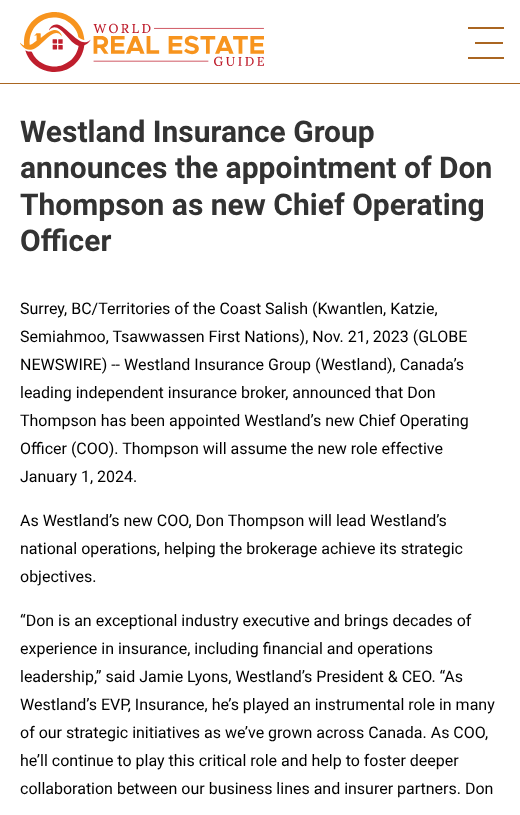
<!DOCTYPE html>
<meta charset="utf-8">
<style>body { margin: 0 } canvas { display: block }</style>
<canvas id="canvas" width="520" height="815"></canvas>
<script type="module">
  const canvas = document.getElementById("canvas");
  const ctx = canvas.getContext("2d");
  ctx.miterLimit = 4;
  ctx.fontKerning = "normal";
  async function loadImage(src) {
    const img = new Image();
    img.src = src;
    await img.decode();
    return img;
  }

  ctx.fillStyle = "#ffffff";
  ctx.fillRect(0, 0, 520, 815);
  ctx.drawImage(await loadImage("img1.png"), 20, 12, 244, 60);
  ctx.fillStyle = "#aa6621";
  ctx.fillRect(468, 27, 36, 2);
  ctx.fillRect(475, 42, 28, 2);
  ctx.fillRect(468, 57, 36, 2);
  ctx.fillRect(0, 83, 520, 1);
  ctx.font = "bold 30px Roboto";
  ctx.fillStyle = "#333333";
  ctx.fillText("Westland Insurance Group", 20, 142);
  ctx.fillText("announces the appointment of Don", 20, 178);
  ctx.fillText("Thompson as new Chief Operating", 20, 215);
  ctx.fillText("Officer", 20, 251);
  ctx.font = "16px Roboto";
  ctx.fillStyle = "#000000";
  ctx.fillText("Surrey, BC/Territories of the Coast Salish (Kwantlen, Katzie,", 20, 314);
  ctx.fillText("Semiahmoo, Tsawwassen First Nations), Nov. 21, 2023 (GLOBE", 20, 342);
  ctx.fillText("NEWSWIRE) -- Westland Insurance Group (Westland), Canada’s", 20, 370);
  ctx.fillText("leading independent insurance broker, announced that Don", 20, 398);
  ctx.fillText("Thompson has been appointed Westland’s new Chief Operating", 20, 426);
  ctx.fillText("Officer (COO). Thompson will assume the new role effective", 20, 454);
  ctx.fillText("January 1, 2024.", 20, 482);
  ctx.fillText("As Westland’s new COO, Don Thompson will lead Westland’s", 20, 526);
  ctx.fillText("national operations, helping the brokerage achieve its strategic", 20, 554);
  ctx.fillText("objectives.", 20, 582);
  ctx.fillText("“Don is an exceptional industry executive and brings decades of", 20, 626);
  ctx.fillText("experience in insurance, including financial and operations", 20, 654);
  ctx.fillText("leadership,” said Jamie Lyons, Westland’s President & CEO. “As", 20, 682);
  ctx.fillText("Westland’s EVP, Insurance, he’s played an instrumental role in many", 20, 710);
  ctx.fillText("of our strategic initiatives as we’ve grown across Canada. As COO,", 20, 738);
  ctx.fillText("he’ll continue to play this critical role and help to foster deeper", 20, 766);
  ctx.fillText("collaboration between our business lines and insurer partners. Don", 20, 794);
</script>
